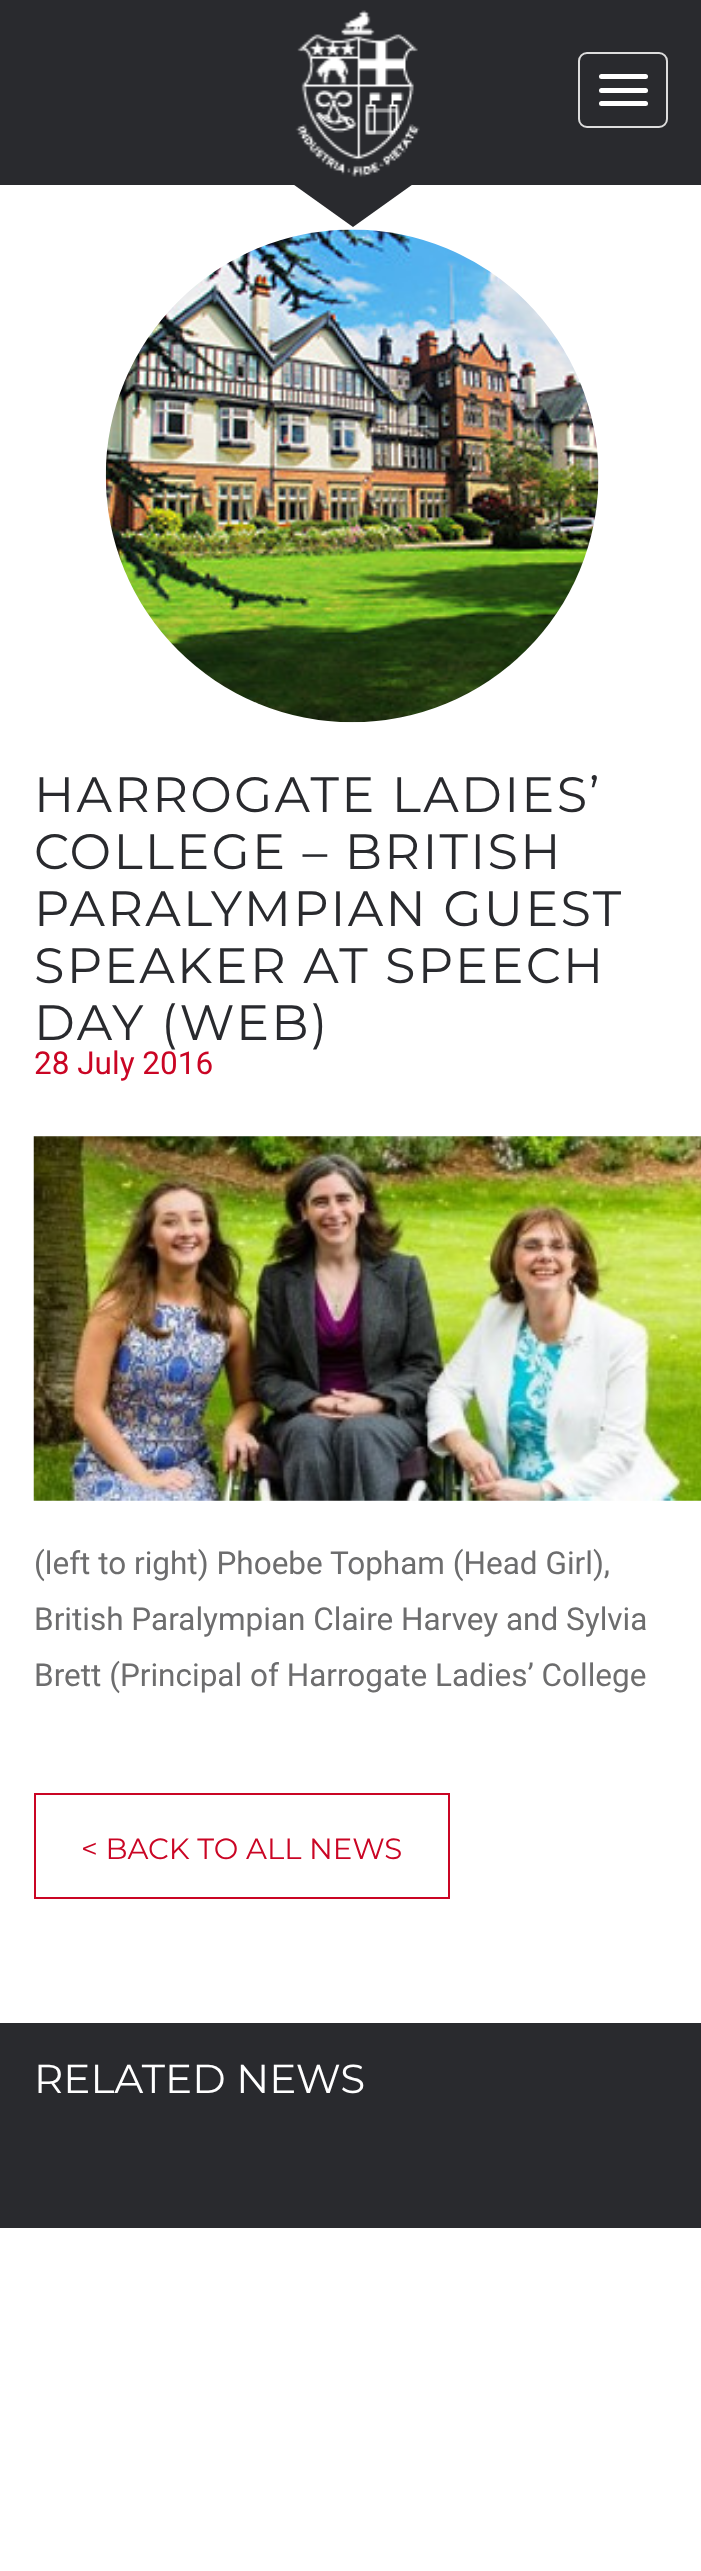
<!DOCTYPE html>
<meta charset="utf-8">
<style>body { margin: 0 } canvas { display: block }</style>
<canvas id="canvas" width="701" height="2571"></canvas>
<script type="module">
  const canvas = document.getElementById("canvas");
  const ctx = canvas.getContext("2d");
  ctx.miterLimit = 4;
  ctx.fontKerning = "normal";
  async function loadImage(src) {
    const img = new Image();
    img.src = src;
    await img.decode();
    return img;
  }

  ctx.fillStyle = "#ffffff";
  ctx.fillRect(0, 0, 701, 2571);
  ctx.fillStyle = "#292a2e";
  ctx.fillRect(0, 0, 701, 185);
  ctx.drawImage(await loadImage("img1.png"), 295, 10, 125, 167);
  ctx.beginPath();
  ctx.roundRect(579, 53, 88, 74, 8);
  ctx.strokeStyle = "#dddddd";
  ctx.lineWidth = 2;
  ctx.stroke();
  ctx.fillStyle = "#ffffff";
  ctx.beginPath();
  ctx.roundRect(599, 74, 49, 5, 2.5);
  ctx.fill();
  ctx.beginPath();
  ctx.roundRect(599, 88, 49, 5, 2.5);
  ctx.fill();
  ctx.beginPath();
  ctx.roundRect(599, 101, 49, 5, 2.5);
  ctx.fill();
  ctx.fillStyle = "#292a2e";
  ctx.beginPath();
  ctx.moveTo(290, 182);
  ctx.lineTo(416, 182);
  ctx.lineTo(353, 227);
  ctx.closePath();
  ctx.fill();
  ctx.drawImage(await loadImage("img2.png"), 105, 229, 494, 494);
  ctx.letterSpacing = "2.25px";
  ctx.font = "49.5px Montserrat";
  ctx.fillText("HARROGATE LADIES’", 34, 812);
  ctx.fillText("COLLEGE – BRITISH", 34, 869);
  ctx.fillText("PARALYMPIAN GUEST", 34, 926);
  ctx.fillText("SPEAKER AT SPEECH", 34, 983);
  ctx.fillText("DAY (WEB)", 34, 1040);
  ctx.letterSpacing = "0px";
  ctx.font = "31.5px Roboto";
  ctx.fillStyle = "#ca0524";
  ctx.fillText("28 July 2016", 34, 1074);
  ctx.drawImage(await loadImage("img3.png"), 33, 1136, 668, 365);
  ctx.fillStyle = "#6d6d6e";
  ctx.fillText("(left to right) Phoebe Topham (Head Girl),", 34, 1574);
  ctx.fillText("British Paralympian Claire Harvey and Sylvia", 34, 1630);
  ctx.fillText("Brett (Principal of Harrogate Ladies’ College", 34, 1686);
  ctx.strokeStyle = "#ca0524";
  ctx.strokeRect(35, 1794, 414, 104);
  ctx.font = "29.25px Montserrat";
  ctx.fillStyle = "#ca0524";
  ctx.fillText("< BACK TO ALL NEWS", 81, 1859);
  ctx.fillStyle = "#292a2e";
  ctx.fillRect(0, 2023, 701, 205);
  ctx.font = "40.5px Montserrat";
  ctx.fillStyle = "#ffffff";
  ctx.fillText("RELATED NEWS", 34, 2093);
</script>
